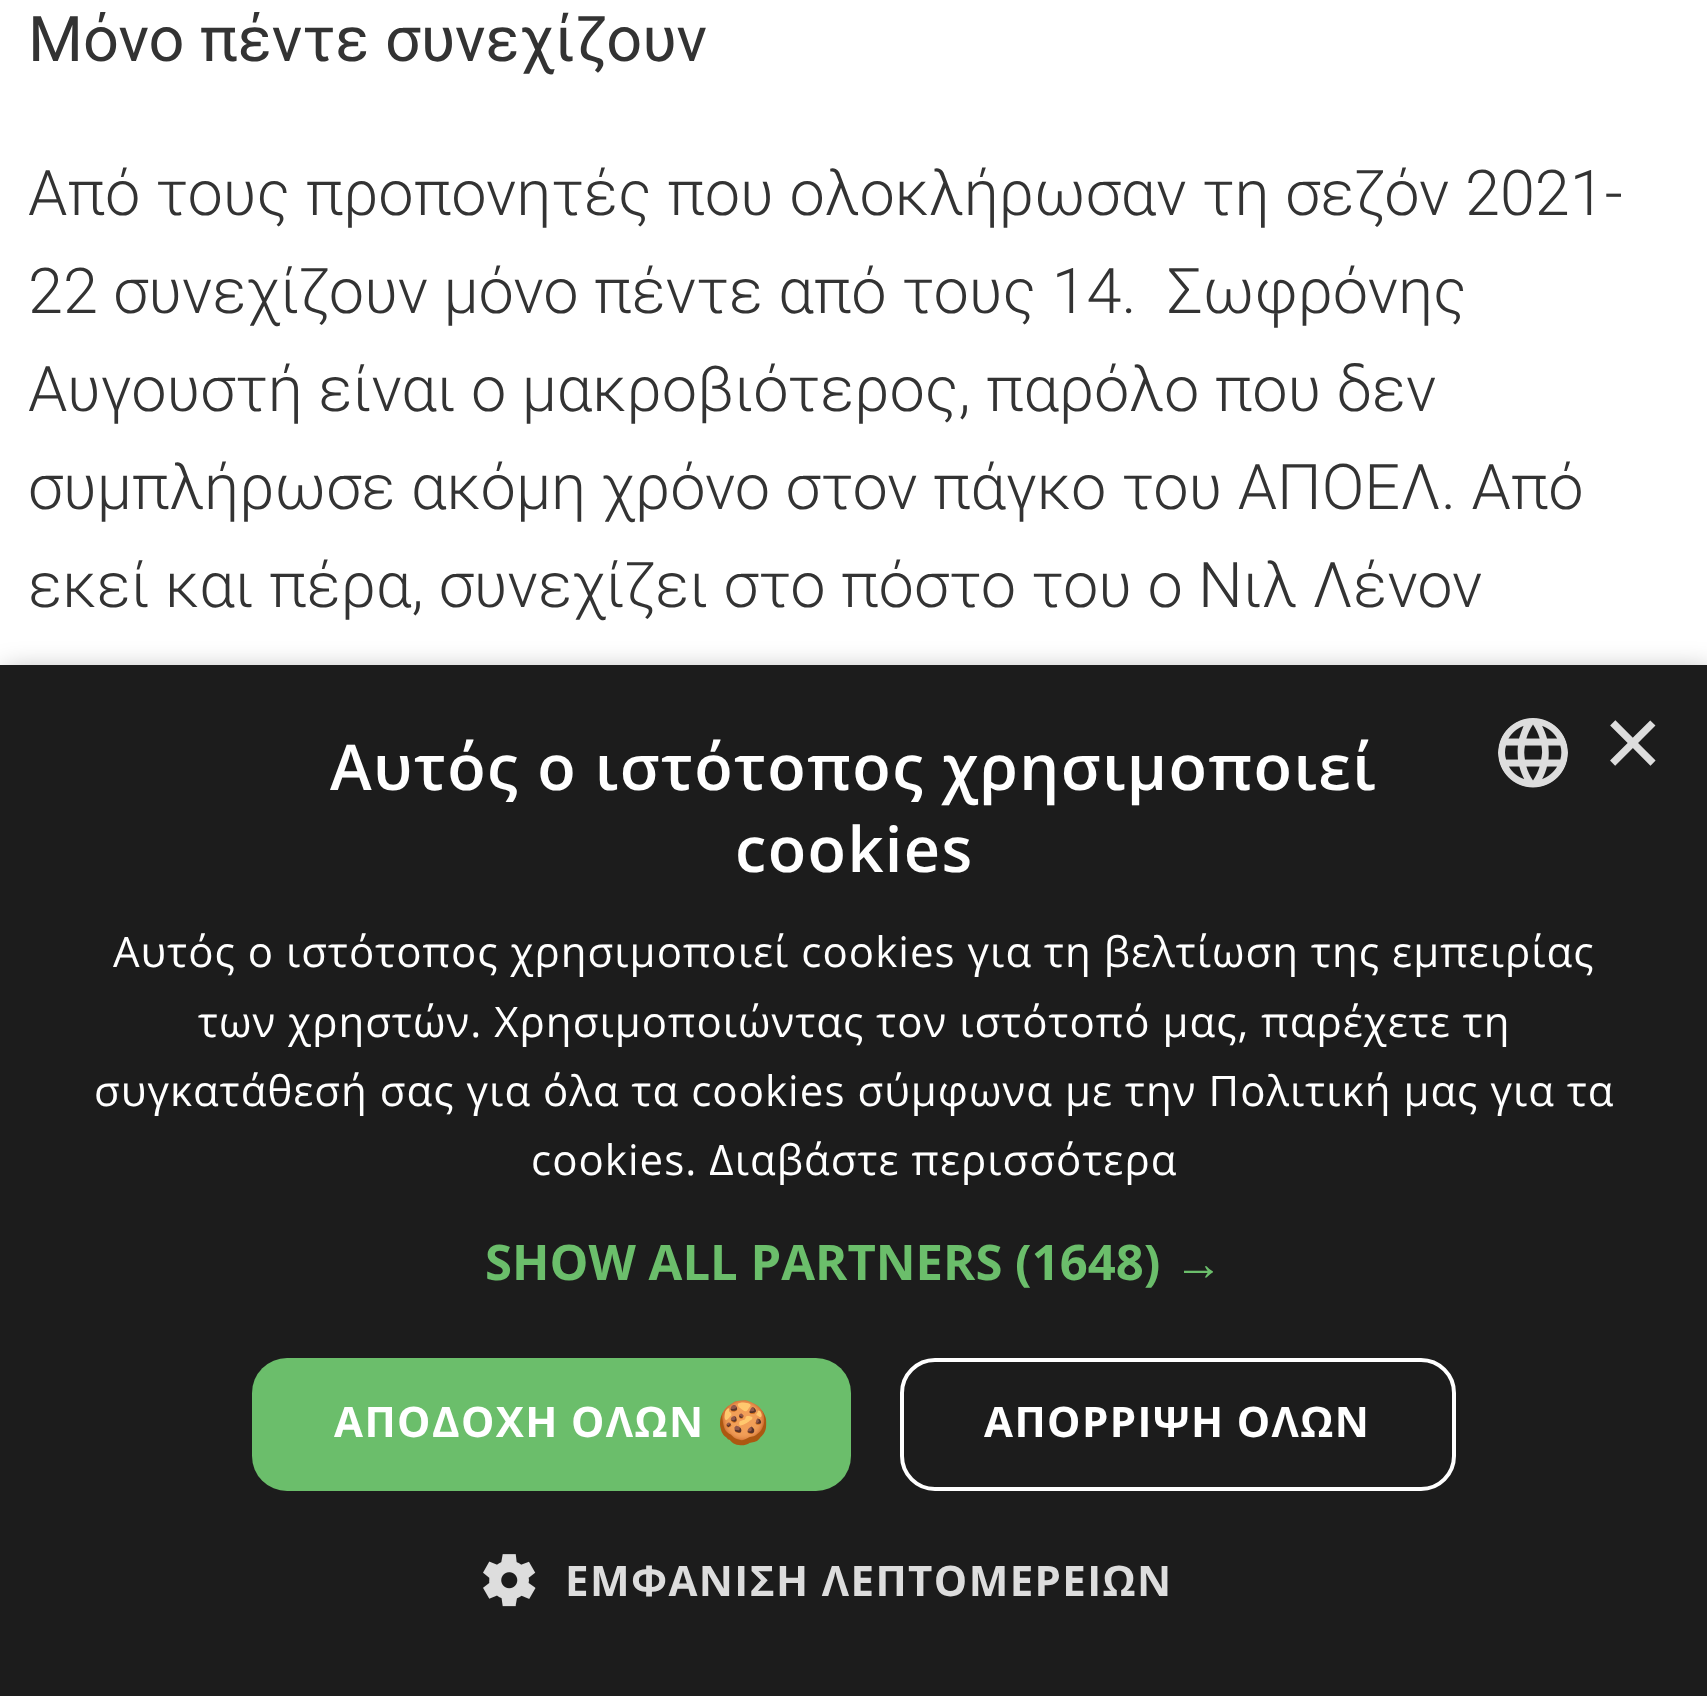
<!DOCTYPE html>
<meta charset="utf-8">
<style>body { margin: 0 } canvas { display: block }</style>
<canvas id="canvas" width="1707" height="1696"></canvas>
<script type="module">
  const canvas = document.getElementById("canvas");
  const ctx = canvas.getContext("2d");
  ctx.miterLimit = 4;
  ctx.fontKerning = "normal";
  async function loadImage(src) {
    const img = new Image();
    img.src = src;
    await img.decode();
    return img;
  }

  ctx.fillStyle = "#ffffff";
  ctx.fillRect(0, 0, 1707, 1696);
  ctx.font = "63px Roboto";
  ctx.fillStyle = "#333333";
  ctx.fillText("Μόνο πέντε συνεχίζουν", 28, 61);
  ctx.wordSpacing = "0.25px";
  ctx.font = "300 63px Roboto";
  ctx.fillText("Από τους προπονητές που ολοκλήρωσαν τη σεζόν 2021-", 28, 215);
  ctx.wordSpacing = "0px";
  ctx.fillText("22 συνεχίζουν μόνο πέντε από τους 14.  Σωφρόνης", 28, 313);
  ctx.fillText("Αυγουστή είναι ο μακροβιότερος, παρόλο που δεν", 28, 411);
  ctx.fillText("συμπλήρωσε ακόμη χρόνο στον πάγκο του ΑΠΟΕΛ. Από", 28, 509);
  ctx.fillText("εκεί και πέρα, συνεχίζει στο πόστο του ο Νιλ Λένον", 28, 607);
  ctx.fillStyle = "rgba(0, 0, 0, 0.35)";
  ctx.filter = "blur(14px)";
  ctx.beginPath();
  ctx.rect(4, 672, 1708, 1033);
  ctx.fill();
  ctx.filter = "none";
  ctx.fillStyle = "#1c1c1c";
  ctx.fillRect(0, 665, 1707, 1031);
  ctx.letterSpacing = "1.4px";
  ctx.font = "600 63px Open Sans";
  ctx.fillStyle = "#ffffff";
  ctx.fillText("Αυτός ο ιστότοπος χρησιμοποιεί", 330, 790);
  ctx.fillText("cookies", 735, 872);
  ctx.drawImage(await loadImage("img1.png"), 1498, 718, 70, 70);
  ctx.letterSpacing = "0px";
  ctx.font = "102px Liberation Sans";
  ctx.fillStyle = "#dddddd";
  ctx.fillText("×", 1603, 777);
  ctx.letterSpacing = "1.05px";
  ctx.font = "42px Open Sans";
  ctx.fillStyle = "#ffffff";
  ctx.fillText("Αυτός ο ιστότοπος χρησιμοποιεί cookies για τη βελτίωση της εμπειρίας", 113, 967);
  ctx.fillText("των χρηστών. Χρησιμοποιώντας τον ιστότοπό μας, παρέχετε τη", 198, 1037);
  ctx.fillText("συγκατάθεσή σας για όλα τα cookies σύμφωνα με την Πολιτική μας για τα", 94, 1106);
  ctx.fillText("cookies. Διαβάστε περισσότερα", 531, 1175);
  ctx.letterSpacing = "0px";
  ctx.font = "bold 49px Open Sans";
  ctx.fillStyle = "#6bbe6b";
  ctx.fillText("SHOW ALL PARTNERS (1648)", 485, 1280);
  ctx.font = "bold 49px Liberation Sans";
  ctx.fillText("→", 1174, 1280);
  ctx.beginPath();
  ctx.roundRect(252, 1358, 599, 133, 35);
  ctx.fill();
  ctx.letterSpacing = "1.4px";
  ctx.font = "bold 42px Open Sans";
  ctx.fillStyle = "#ffffff";
  ctx.fillText("ΑΠΟΔΟΧΗ ΟΛΩΝ", 334, 1437);
  ctx.font = "bold 42px Noto Color Emoji";
  ctx.fillText("🍪", 717, 1437);
  ctx.beginPath();
  ctx.roundRect(902, 1360, 552, 129, 33);
  ctx.strokeStyle = "#ffffff";
  ctx.lineWidth = 4;
  ctx.stroke();
  ctx.font = "bold 42px Open Sans";
  ctx.fillText("ΑΠΟΡΡΙΨΗ ΟΛΩΝ", 984, 1437);
  ctx.drawImage(await loadImage("img2.png"), 483, 1554, 53, 53);
  ctx.fillStyle = "#dddddd";
  ctx.fillText("ΕΜΦΑΝΙΣΗ ΛΕΠΤΟΜΕΡΕΙΩΝ", 565, 1596);
</script>
